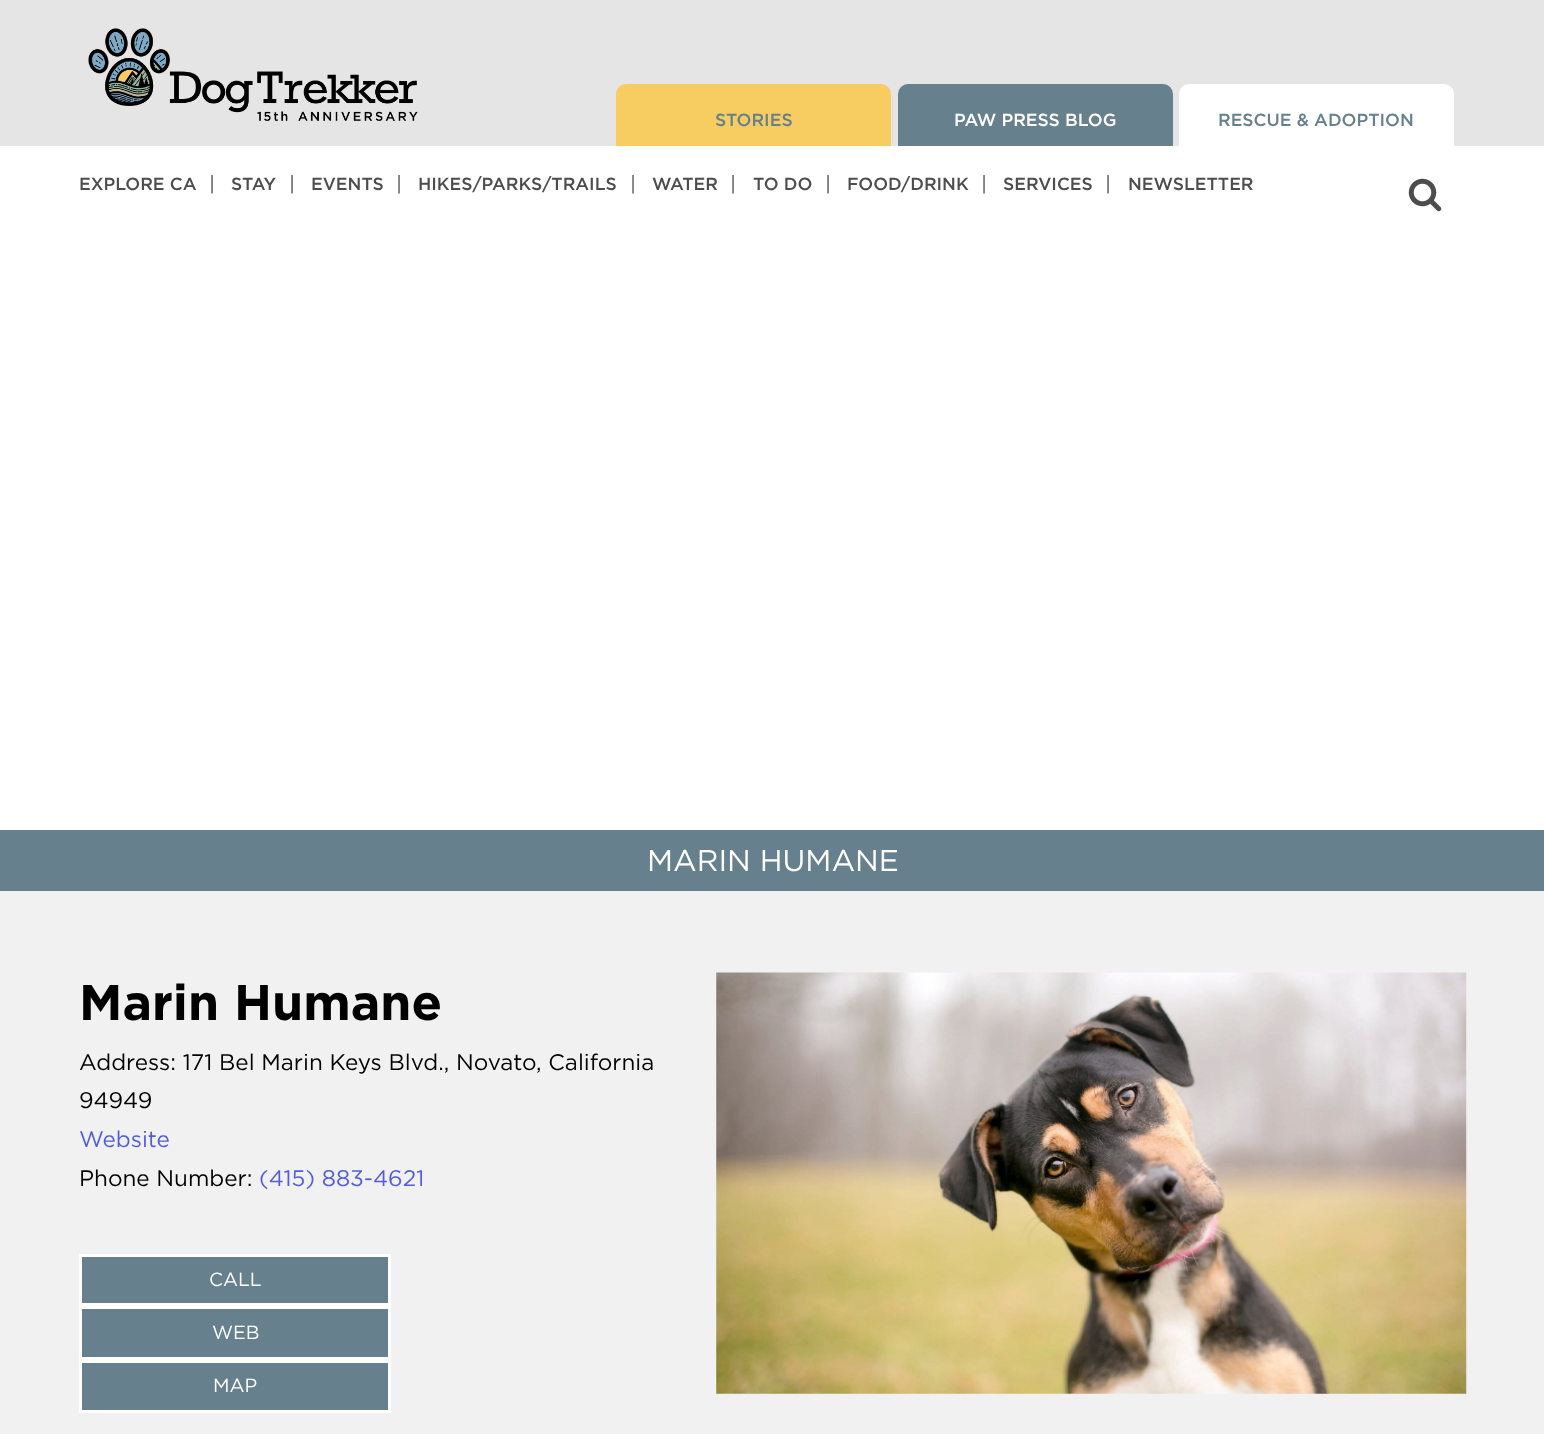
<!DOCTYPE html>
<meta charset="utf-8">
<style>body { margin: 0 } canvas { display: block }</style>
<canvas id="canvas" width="1544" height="1434"></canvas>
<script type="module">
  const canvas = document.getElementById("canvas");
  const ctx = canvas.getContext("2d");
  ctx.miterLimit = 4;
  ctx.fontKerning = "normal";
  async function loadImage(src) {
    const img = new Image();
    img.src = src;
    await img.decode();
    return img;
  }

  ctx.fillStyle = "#ffffff";
  ctx.fillRect(0, 0, 1544, 1434);
  ctx.fillStyle = "#e5e5e5";
  ctx.fillRect(0, 0, 1544, 146);
  ctx.drawImage(await loadImage("img1.png"), 88, 28, 330, 93);
  ctx.fillStyle = "#f7cd61";
  ctx.beginPath();
  ctx.roundRect(616, 84, 275, 62, [10, 10, 0, 0]);
  ctx.fill();
  ctx.font = "500 17.5px Gotham";
  ctx.fillStyle = "#66808d";
  ctx.fillText("STORIES", 715, 126);
  ctx.beginPath();
  ctx.roundRect(898, 84, 275, 62, [10, 10, 0, 0]);
  ctx.fill();
  ctx.fillStyle = "#ffffff";
  ctx.fillText("PAW PRESS BLOG", 954, 126);
  ctx.beginPath();
  ctx.roundRect(1179, 84, 275, 62, [10, 10, 0, 0]);
  ctx.fill();
  ctx.fillStyle = "#66808d";
  ctx.fillText("RESCUE & ADOPTION", 1218, 126);
  ctx.fillStyle = "#4d4d4d";
  ctx.fillText("EXPLORE CA", 79, 190);
  ctx.font = "20px Gotham";
  ctx.fillText("|", 209, 191);
  ctx.font = "500 17.5px Gotham";
  ctx.fillText("STAY", 231, 190);
  ctx.font = "20px Gotham";
  ctx.fillText("|", 289, 191);
  ctx.font = "500 17.5px Gotham";
  ctx.fillText("EVENTS", 311, 190);
  ctx.font = "20px Gotham";
  ctx.fillText("|", 396, 191);
  ctx.font = "500 17.5px Gotham";
  ctx.fillText("HIKES/PARKS/TRAILS", 418, 190);
  ctx.font = "20px Gotham";
  ctx.fillText("|", 630, 191);
  ctx.font = "500 17.5px Gotham";
  ctx.fillText("WATER", 652, 190);
  ctx.font = "20px Gotham";
  ctx.fillText("|", 730, 191);
  ctx.font = "500 17.5px Gotham";
  ctx.fillText("TO DO", 753, 190);
  ctx.font = "20px Gotham";
  ctx.fillText("|", 825, 191);
  ctx.font = "500 17.5px Gotham";
  ctx.fillText("FOOD/DRINK", 847, 190);
  ctx.font = "20px Gotham";
  ctx.fillText("|", 981, 191);
  ctx.font = "500 17.5px Gotham";
  ctx.fillText("SERVICES", 1003, 190);
  ctx.font = "20px Gotham";
  ctx.fillText("|", 1105, 191);
  ctx.font = "500 17.5px Gotham";
  ctx.fillText("NEWSLETTER", 1128, 190);
  ctx.drawImage(await loadImage("img2.png"), 1408, 178, 34, 34);
  ctx.fillStyle = "#66808d";
  ctx.fillRect(0, 830, 1544, 61);
  ctx.font = "30px Gotham";
  ctx.fillStyle = "#ffffff";
  ctx.fillText("MARIN HUMANE", 647, 871);
  ctx.fillStyle = "#f1f1f1";
  ctx.fillRect(0, 891, 1544, 543);
  ctx.font = "bold 50px Gotham";
  ctx.fillStyle = "#000000";
  ctx.fillText("Marin Humane", 79, 1020);
  ctx.font = "22.5px Gotham";
  ctx.fillText("Address: 171 Bel Marin Keys Blvd., Novato, California", 79, 1070);
  ctx.fillText("94949", 79, 1108);
  ctx.fillStyle = "#525ddc";
  ctx.fillText("Website", 79, 1147);
  ctx.fillStyle = "#000000";
  ctx.fillText("Phone Number:", 79, 1186);
  ctx.fillStyle = "#525ddc";
  ctx.fillText("(415) 883-4621", 259, 1186);
  ctx.fillStyle = "#66808d";
  ctx.beginPath();
  ctx.rect(80.5, 1255.5, 309, 49);
  ctx.fill();
  ctx.strokeStyle = "#ffffff";
  ctx.lineWidth = 3;
  ctx.stroke();
  ctx.font = "19px Gotham";
  ctx.fillStyle = "#ffffff";
  ctx.fillText("CALL", 209, 1286);
  ctx.fillStyle = "#66808d";
  ctx.beginPath();
  ctx.rect(80.5, 1307.5, 309, 51);
  ctx.fill();
  ctx.stroke();
  ctx.fillStyle = "#ffffff";
  ctx.fillText("WEB", 212, 1339);
  ctx.fillStyle = "#66808d";
  ctx.beginPath();
  ctx.rect(80.5, 1361.5, 309, 50);
  ctx.fill();
  ctx.stroke();
  ctx.fillStyle = "#ffffff";
  ctx.fillText("MAP", 213, 1392);
  ctx.drawImage(await loadImage("img3.png"), 716, 972, 751, 422);
</script>
